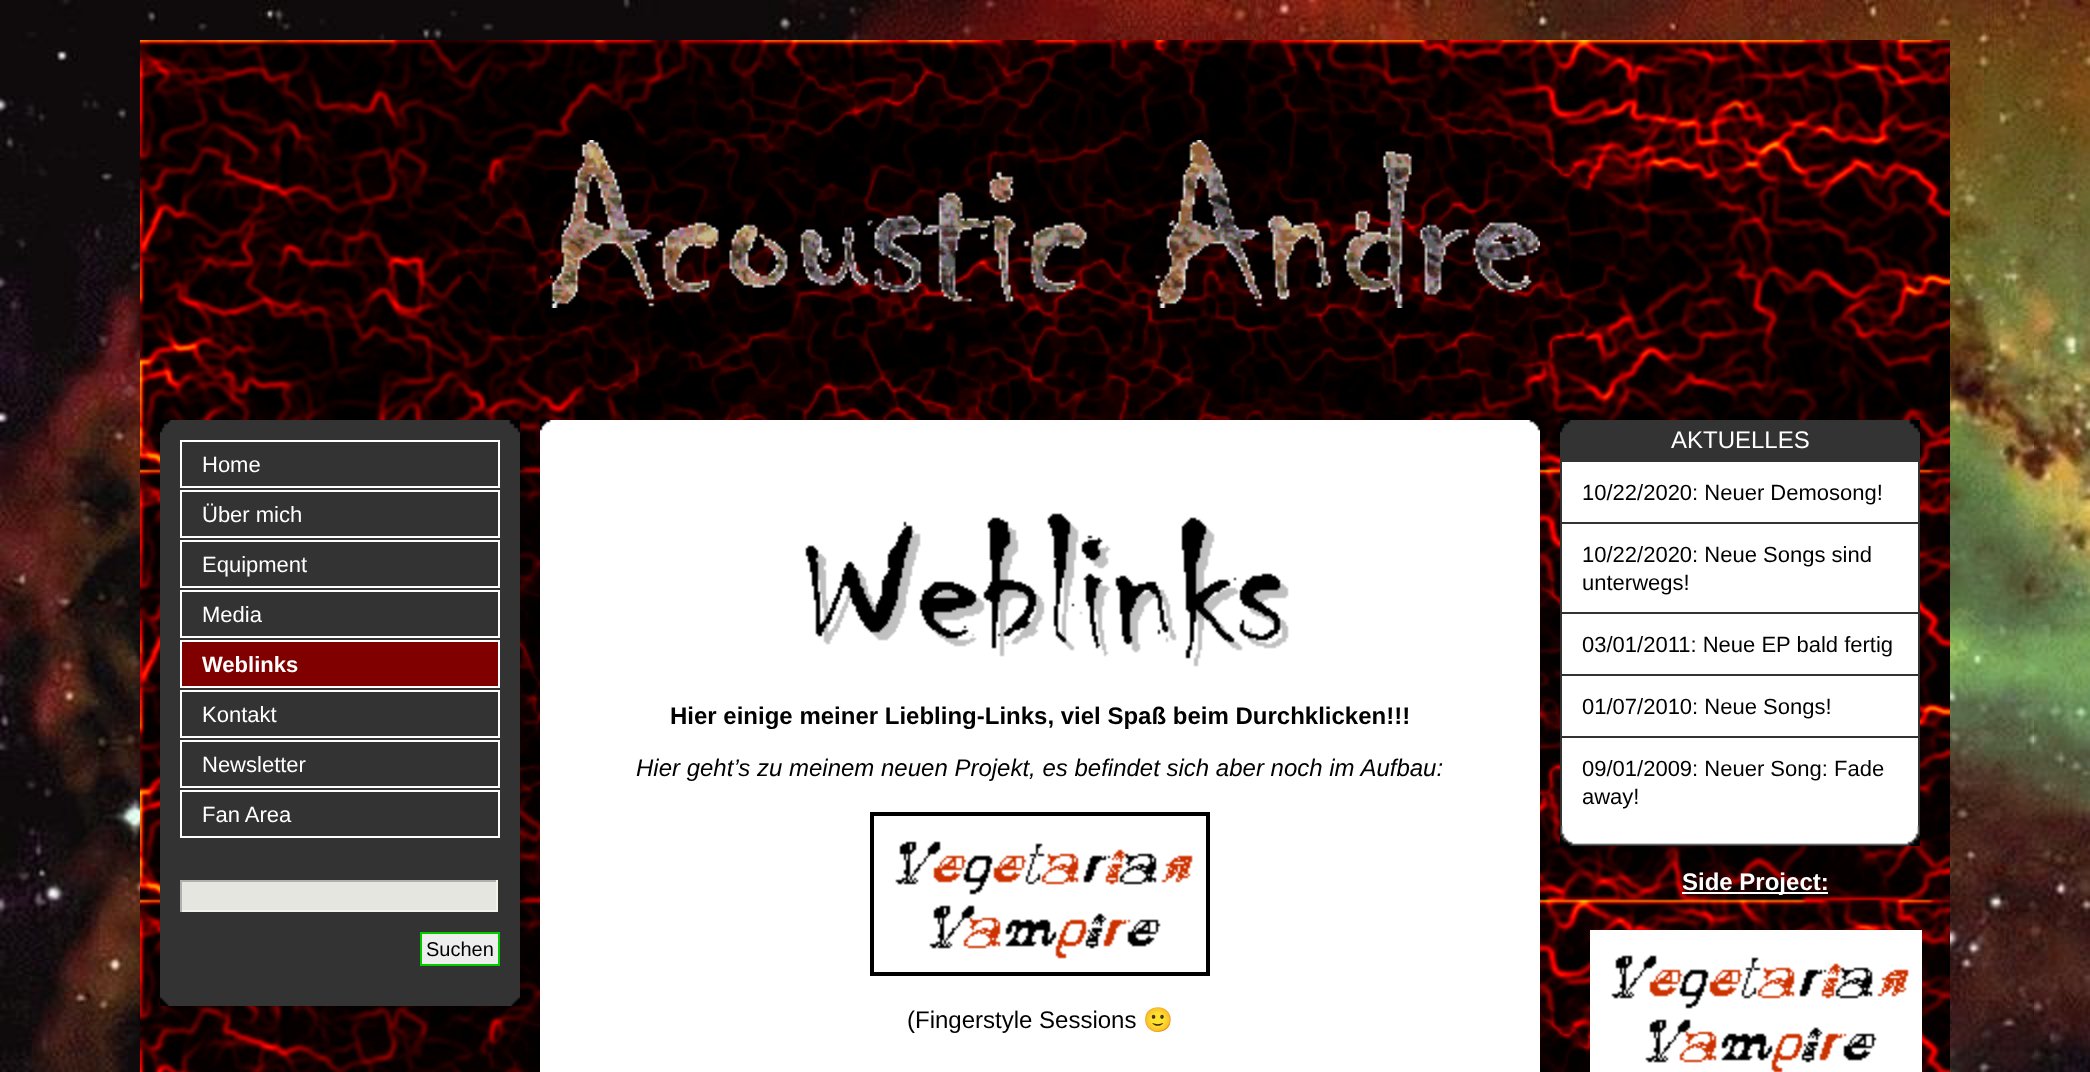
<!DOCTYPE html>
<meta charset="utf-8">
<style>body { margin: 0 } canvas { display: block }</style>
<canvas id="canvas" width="2090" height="1072"></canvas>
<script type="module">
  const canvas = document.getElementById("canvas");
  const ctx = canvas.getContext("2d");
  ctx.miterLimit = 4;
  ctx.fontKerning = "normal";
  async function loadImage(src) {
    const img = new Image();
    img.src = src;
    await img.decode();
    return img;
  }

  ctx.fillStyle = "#ffffff";
  ctx.fillRect(0, 0, 2090, 1072);
  ctx.drawImage(await loadImage("img1.png"), 0, 0, 2090, 1072);
  ctx.drawImage(await loadImage("img2.png"), 140, 420, 1810, 652);
  ctx.drawImage(await loadImage("img3.png"), 140, 40, 1810, 380);
  ctx.drawImage(await loadImage("img4.png"), 550, 140, 990, 168);
  ctx.fillStyle = "#333333";
  ctx.fillRect(160, 433, 360, 564);
  ctx.drawImage(await loadImage("img5.png"), 160, 420, 360, 13);
  ctx.strokeStyle = "#ffffff";
  ctx.lineWidth = 2;
  ctx.strokeRect(181, 441, 318, 46);
  ctx.font = "22px Liberation Sans";
  ctx.fillStyle = "#ffffff";
  ctx.fillText("Home", 202, 472);
  ctx.strokeRect(181, 491, 318, 46);
  ctx.fillText("Über mich", 202, 522);
  ctx.strokeRect(181, 541, 318, 46);
  ctx.fillText("Equipment", 202, 572);
  ctx.strokeRect(181, 591, 318, 46);
  ctx.fillText("Media", 202, 622);
  ctx.fillStyle = "#800000";
  ctx.beginPath();
  ctx.rect(181, 641, 318, 46);
  ctx.fill();
  ctx.stroke();
  ctx.font = "bold 22px Liberation Sans";
  ctx.fillStyle = "#ffffff";
  ctx.fillText("Weblinks", 202, 672);
  ctx.strokeRect(181, 691, 318, 46);
  ctx.font = "22px Liberation Sans";
  ctx.fillText("Kontakt", 202, 722);
  ctx.strokeRect(181, 741, 318, 46);
  ctx.fillText("Newsletter", 202, 772);
  ctx.strokeRect(181, 791, 318, 46);
  ctx.fillText("Fan Area", 202, 822);
  ctx.drawImage(await loadImage("img6.png"), 160, 997, 360, 9);
  ctx.fillStyle = "#e6e6e0";
  ctx.fillRect(182, 882, 314, 28);
  ctx.fillStyle = "#b0b0af";
  ctx.fillRect(180, 880, 318, 2);
  ctx.fillStyle = "#f3f3ee";
  ctx.fillRect(496, 880, 2, 32);
  ctx.fillRect(180, 910, 318, 2);
  ctx.fillStyle = "#b0b0af";
  ctx.fillRect(180, 880, 2, 32);
  ctx.fillStyle = "#eeeeee";
  ctx.beginPath();
  ctx.rect(421, 933, 78, 32);
  ctx.fill();
  ctx.strokeStyle = "#00cc00";
  ctx.stroke();
  ctx.font = "20px Liberation Sans";
  ctx.fillStyle = "#000000";
  ctx.fillText("Suchen", 426, 956);
  ctx.fillStyle = "#ffffff";
  ctx.fillRect(540, 431, 1000, 641);
  ctx.drawImage(await loadImage("img7.png"), 540, 420, 1000, 11);
  ctx.drawImage(await loadImage("img8.png"), 805, 513, 484, 154);
  ctx.font = "bold 24px Liberation Sans";
  ctx.fillStyle = "#000000";
  ctx.fillText("Hier einige meiner Liebling-Links, viel Spaß beim Durchklicken!!!", 670, 724);
  ctx.font = "italic 24px Liberation Sans";
  ctx.fillText("Hier geht’s zu meinem neuen Projekt, es befindet sich aber noch im Aufbau:", 636, 776);
  ctx.strokeStyle = "#000000";
  ctx.lineWidth = 4;
  ctx.strokeRect(872, 814, 336, 160);
  ctx.drawImage(await loadImage("img9.png"), 895, 841, 298, 118);
  ctx.font = "24px Liberation Sans";
  ctx.fillText("(Fingerstyle Sessions", 907, 1028);
  ctx.font = "24px Noto Color Emoji";
  ctx.fillText("🙂", 1143, 1028);
  ctx.fillStyle = "#ffffff";
  ctx.fillRect(1562, 462, 356, 364);
  ctx.drawImage(await loadImage("img10.png"), 1560, 826, 360, 20);
  ctx.fillStyle = "#333333";
  ctx.fillRect(1560, 433, 360, 29);
  ctx.drawImage(await loadImage("img5.png"), 1560, 420, 360, 13);
  ctx.font = "24px Liberation Sans";
  ctx.fillStyle = "#ffffff";
  ctx.fillText("AKTUELLES", 1671, 448);
  ctx.fillStyle = "#333333";
  ctx.fillRect(1918, 460, 2, 62);
  ctx.fillRect(1560, 460, 2, 62);
  ctx.font = "22px Liberation Sans";
  ctx.fillStyle = "#000000";
  ctx.fillText("10/22/2020: Neuer Demosong!", 1582, 500);
  ctx.fillStyle = "#333333";
  ctx.fillRect(1560, 522, 360, 2);
  ctx.fillRect(1918, 522, 2, 90);
  ctx.fillRect(1560, 522, 2, 90);
  ctx.fillStyle = "#000000";
  ctx.fillText("10/22/2020: Neue Songs sind", 1582, 562);
  ctx.fillText("unterwegs!", 1582, 590);
  ctx.fillStyle = "#333333";
  ctx.fillRect(1560, 612, 360, 2);
  ctx.fillRect(1918, 612, 2, 62);
  ctx.fillRect(1560, 612, 2, 62);
  ctx.fillStyle = "#000000";
  ctx.fillText("03/01/2011: Neue EP bald fertig", 1582, 652);
  ctx.fillStyle = "#333333";
  ctx.fillRect(1560, 674, 360, 2);
  ctx.fillRect(1918, 674, 2, 62);
  ctx.fillRect(1560, 674, 2, 62);
  ctx.fillStyle = "#000000";
  ctx.fillText("01/07/2010: Neue Songs!", 1582, 714);
  ctx.fillStyle = "#333333";
  ctx.fillRect(1560, 736, 360, 2);
  ctx.fillRect(1918, 736, 2, 90);
  ctx.fillRect(1560, 736, 2, 90);
  ctx.fillStyle = "#000000";
  ctx.fillText("09/01/2009: Neuer Song: Fade", 1582, 776);
  ctx.fillText("away!", 1582, 804);
  ctx.fillStyle = "#ffffff";
  ctx.fillRect(1682, 892, 146, 2);
  ctx.font = "bold 24px Liberation Sans";
  ctx.fillText("Side Project:", 1682, 890);
  ctx.drawImage(await loadImage("img11.png"), 1590, 930, 332, 142);
</script>
